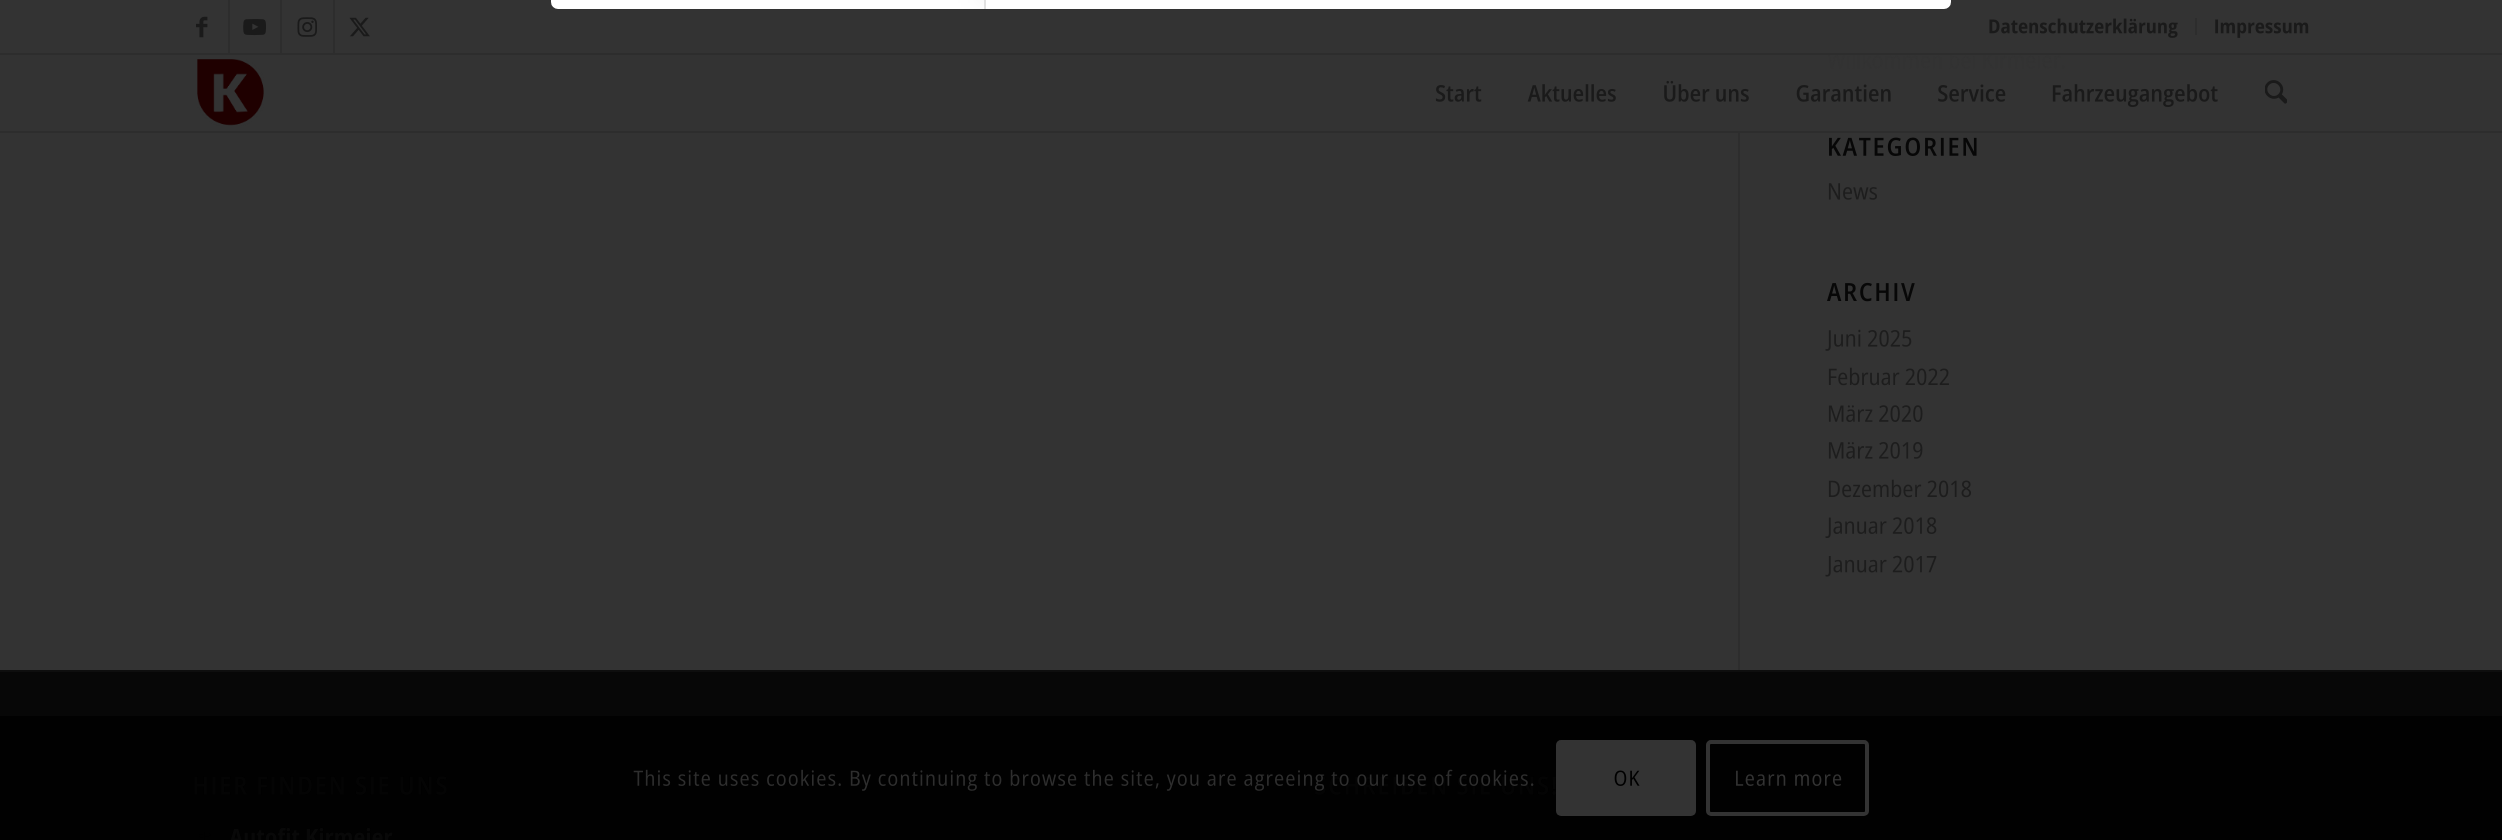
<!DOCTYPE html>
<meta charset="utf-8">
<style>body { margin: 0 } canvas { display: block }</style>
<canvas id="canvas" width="2502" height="840"></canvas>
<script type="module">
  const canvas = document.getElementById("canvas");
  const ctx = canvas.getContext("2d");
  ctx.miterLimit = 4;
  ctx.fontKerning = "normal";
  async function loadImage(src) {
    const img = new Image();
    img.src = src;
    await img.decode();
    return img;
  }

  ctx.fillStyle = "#333333";
  ctx.fillRect(0, 0, 2502, 840);
  ctx.fillStyle = "#ffffff";
  ctx.beginPath();
  ctx.roundRect(551, -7, 1400, 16, 7);
  ctx.fill();
  ctx.save();
  ctx.beginPath();
  ctx.roundRect(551, -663, 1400, 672, 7);
  ctx.clip();
  ctx.fillStyle = "rgba(0, 0, 0, 0.2)";
  ctx.filter = "blur(17.5px)";
  ctx.beginPath();
  ctx.rect(989, -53, 896, 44);
  ctx.fill();
  ctx.filter = "none";
  ctx.restore();
  ctx.beginPath();
  ctx.roundRect(985, -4, 931, 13, 4);
  ctx.fill();
  ctx.fillStyle = "#e1e1e1";
  ctx.fillRect(984, 0, 2, 9);
  ctx.fillStyle = "#2d2d2d";
  ctx.fillRect(0, 53, 2502, 2);
  ctx.fillRect(228, 0, 2, 53);
  ctx.drawImage(await loadImage("img1.png"), 196, 16, 12, 22);
  ctx.fillRect(280, 0, 2, 53);
  ctx.drawImage(await loadImage("img2.png"), 243, 19, 23, 17);
  ctx.fillRect(333, 0, 2, 53);
  ctx.drawImage(await loadImage("img3.png"), 297, 17, 20, 20);
  ctx.drawImage(await loadImage("img4.png"), 349, 17, 21, 20);
  ctx.fillRect(2195, 18, 2, 17);
  ctx.drawImage(await loadImage("img5.png"), 1989, 18, 189, 20);
  ctx.drawImage(await loadImage("img6.png"), 2215, 19, 94, 19);
  ctx.fillRect(0, 131, 2502, 2);
  ctx.drawImage(await loadImage("img7.png"), 197, 59, 67, 67);
  ctx.drawImage(await loadImage("img8.png"), 1435, 85, 47, 17);
  ctx.drawImage(await loadImage("img9.png"), 1527, 84, 89, 18);
  ctx.drawImage(await loadImage("img10.png"), 1664, 80, 85, 22);
  ctx.drawImage(await loadImage("img11.png"), 1796, 84, 95, 18);
  ctx.drawImage(await loadImage("img12.png"), 1938, 84, 68, 18);
  ctx.drawImage(await loadImage("img13.png"), 2052, 84, 166, 23);
  ctx.drawImage(await loadImage("img14.png"), 2265, 80, 22, 24);
  ctx.fillRect(1738, 133, 2, 537);
  ctx.drawImage(await loadImage("img15.png"), 1828, 55, 237, 14);
  ctx.drawImage(await loadImage("img16.png"), 1829, 137, 148, 19);
  ctx.drawImage(await loadImage("img17.png"), 1828, 183, 49, 17);
  ctx.drawImage(await loadImage("img18.png"), 1827, 282, 88, 20);
  ctx.drawImage(await loadImage("img19.png"), 1825, 329, 87, 22);
  ctx.drawImage(await loadImage("img20.png"), 1828, 367, 121, 19);
  ctx.drawImage(await loadImage("img21.png"), 1828, 405, 95, 17);
  ctx.drawImage(await loadImage("img22.png"), 1828, 442, 95, 17);
  ctx.drawImage(await loadImage("img23.png"), 1828, 479, 143, 19);
  ctx.drawImage(await loadImage("img24.png"), 1825, 517, 112, 21);
  ctx.drawImage(await loadImage("img25.png"), 1825, 555, 112, 22);
  ctx.fillStyle = "#070707";
  ctx.fillRect(0, 672, 2502, 44);
  ctx.fillStyle = "#010101";
  ctx.fillRect(0, 716, 2502, 124);
  ctx.fillStyle = "#0e0e0e";
  ctx.fillRect(0, 670, 2502, 2);
  ctx.drawImage(await loadImage("img26.png"), 194, 776, 253, 19);
  ctx.drawImage(await loadImage("img27.png"), 199, 832, 12, 8);
  ctx.drawImage(await loadImage("img28.png"), 230, 827, 163, 13);
  ctx.drawImage(await loadImage("img29.png"), 1315, 776, 241, 19);
  ctx.drawImage(await loadImage("img30.png"), 633, 769, 901, 22);
  ctx.fillStyle = "#333333";
  ctx.beginPath();
  ctx.roundRect(1556, 740, 140, 76, 5);
  ctx.fill();
  ctx.drawImage(await loadImage("img31.png"), 1614, 770, 26, 16);
  ctx.beginPath();
  ctx.roundRect(1708, 742, 159, 72, 3);
  ctx.strokeStyle = "#333333";
  ctx.lineWidth = 4;
  ctx.stroke();
  ctx.drawImage(await loadImage("img32.png"), 1736, 770, 106, 16);
</script>
